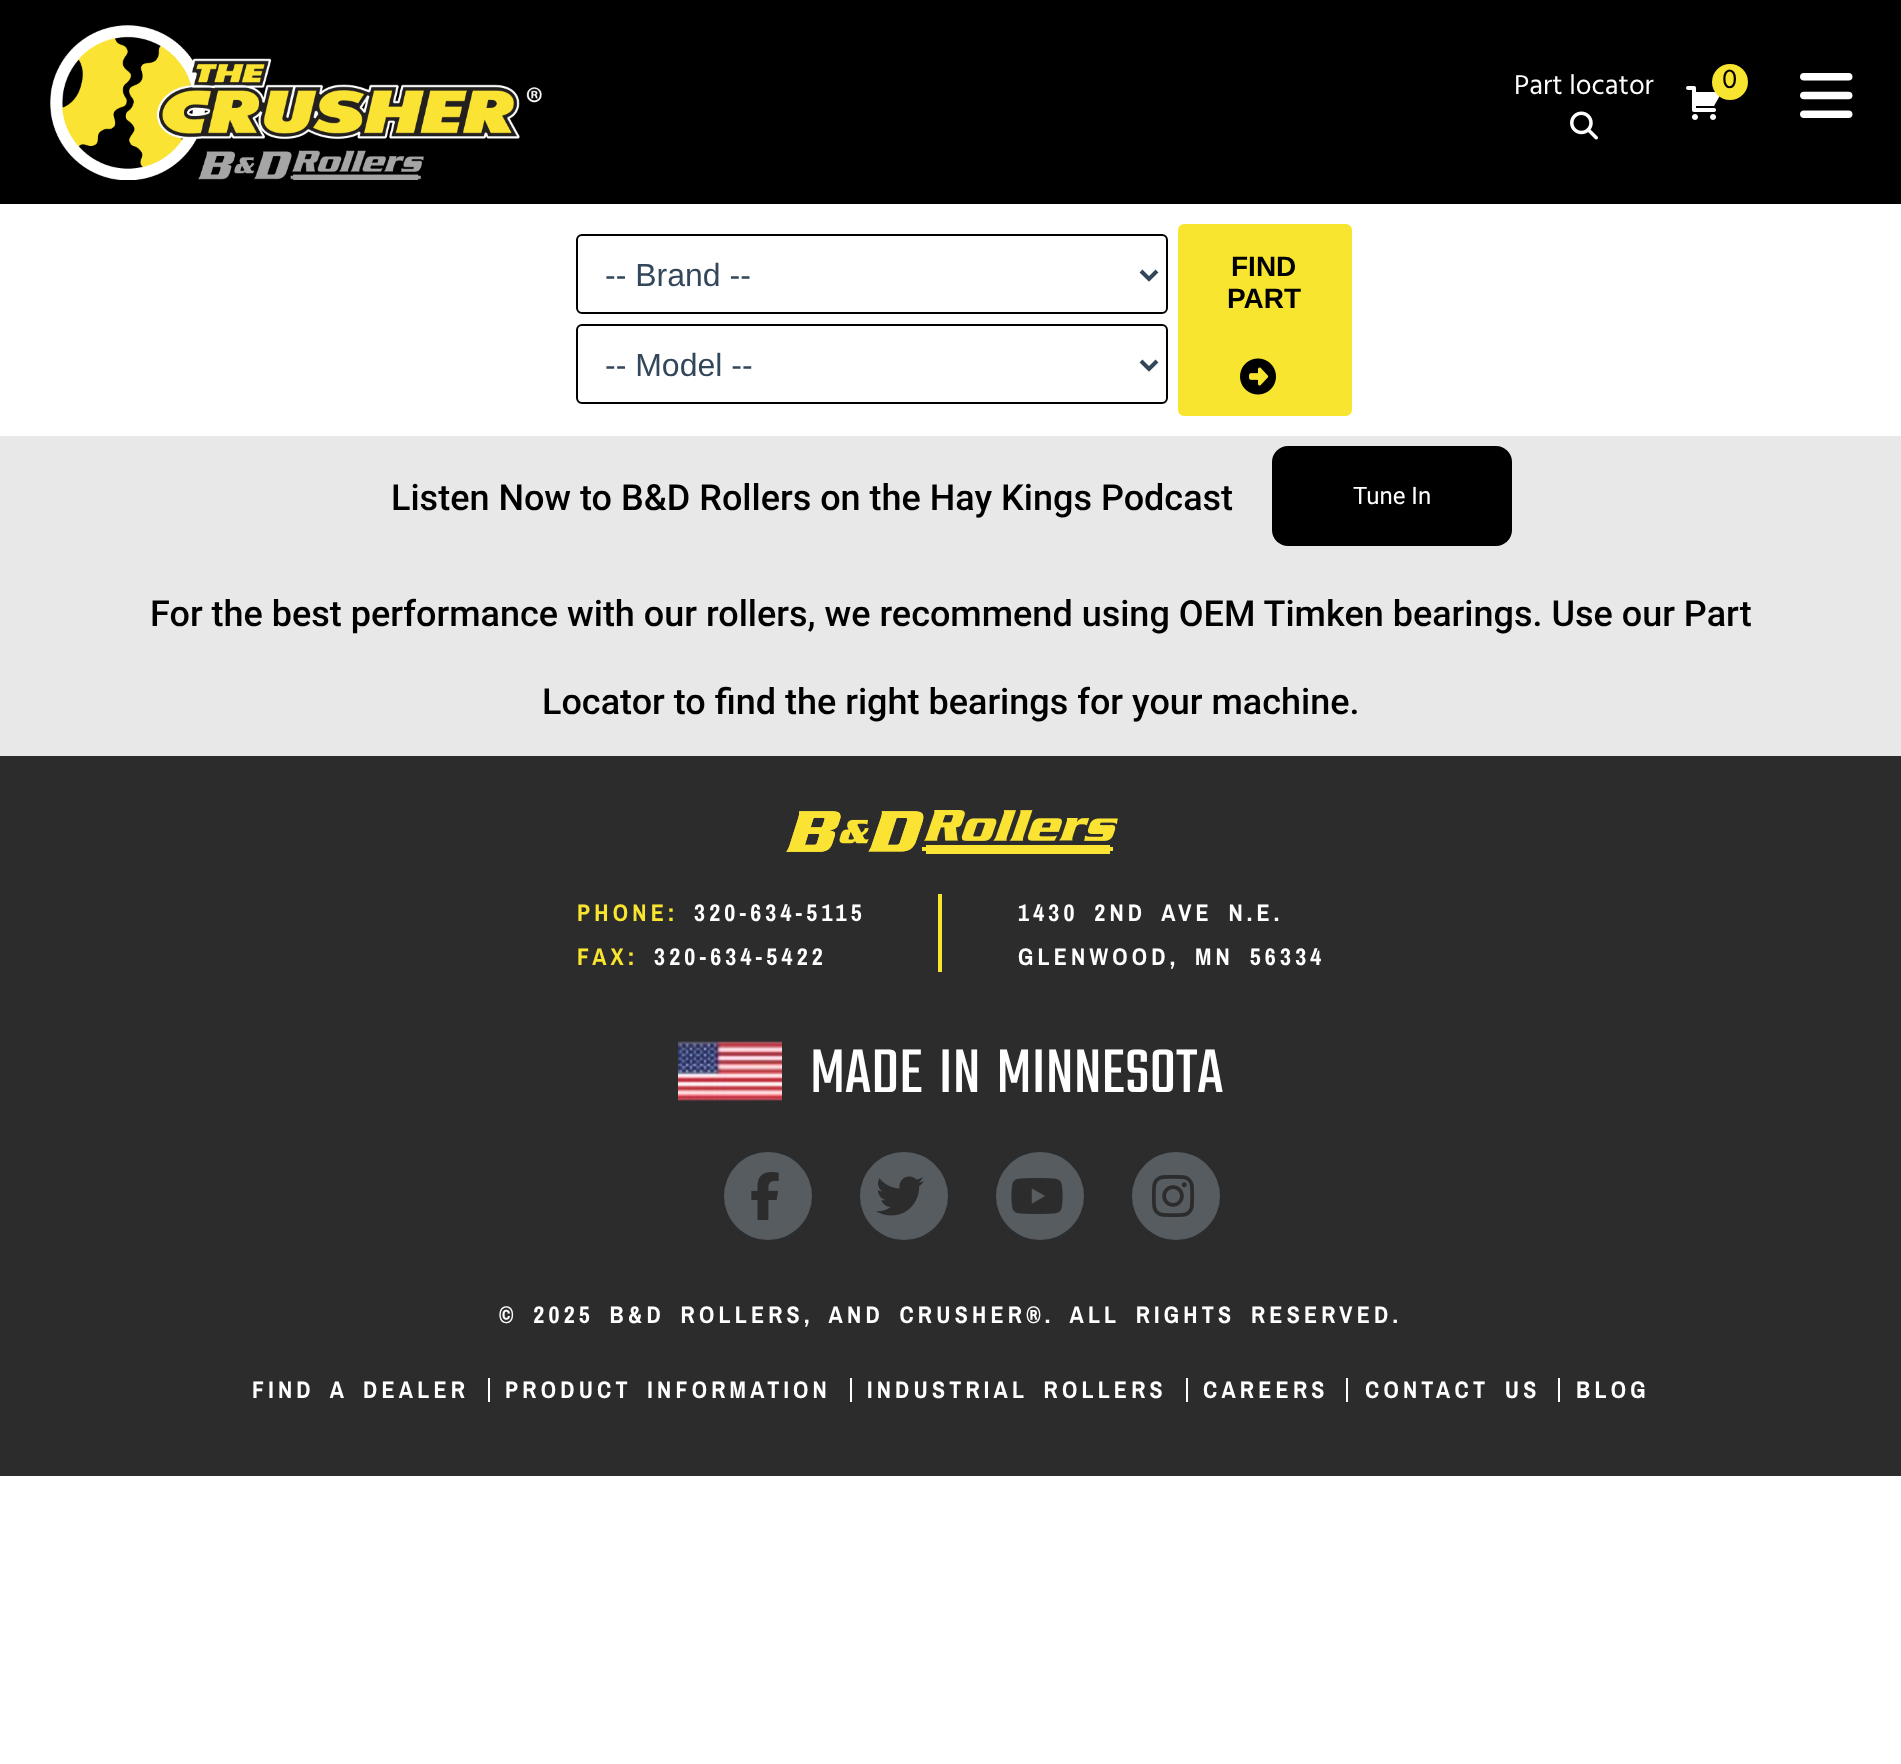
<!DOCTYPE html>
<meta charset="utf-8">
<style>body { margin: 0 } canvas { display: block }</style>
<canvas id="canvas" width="1901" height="1764"></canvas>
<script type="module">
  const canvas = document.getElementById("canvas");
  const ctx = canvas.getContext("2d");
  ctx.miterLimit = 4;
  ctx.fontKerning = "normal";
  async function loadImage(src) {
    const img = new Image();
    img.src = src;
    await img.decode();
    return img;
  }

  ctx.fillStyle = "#ffffff";
  ctx.fillRect(0, 0, 1901, 1764);
  ctx.fillStyle = "#000000";
  ctx.fillRect(0, 0, 1901, 204);
  ctx.drawImage(await loadImage("img1.png"), 50, 25, 492, 155);
  ctx.font = "28px Hind";
  ctx.fillStyle = "#ffffff";
  ctx.fillText("Part locator", 1514, 94);
  ctx.drawImage(await loadImage("img2.png"), 1570, 111, 28, 29);
  ctx.drawImage(await loadImage("img3.png"), 1686, 86, 34, 34);
  ctx.fillStyle = "#f8e52f";
  ctx.beginPath();
  ctx.arc(1730, 82, 18, 0, Math.PI * 2);
  ctx.fill();
  ctx.fillStyle = "#000000";
  ctx.fillText("0", 1722, 88);
  ctx.drawImage(await loadImage("img4.png"), 1800, 73, 53, 45);
  ctx.beginPath();
  ctx.roundRect(577, 235, 590, 78, 5);
  ctx.strokeStyle = "#000000";
  ctx.lineWidth = 2;
  ctx.stroke();
  ctx.beginPath();
  ctx.moveTo(1141, 271);
  ctx.lineTo(1149, 279);
  ctx.lineTo(1157, 271);
  ctx.strokeStyle = "#33475b";
  ctx.lineWidth = 4;
  ctx.stroke();
  ctx.font = "32px Liberation Sans";
  ctx.fillStyle = "#33475b";
  ctx.fillText("-- Brand --", 605, 286);
  ctx.beginPath();
  ctx.roundRect(577, 325, 590, 78, 5);
  ctx.strokeStyle = "#000000";
  ctx.lineWidth = 2;
  ctx.stroke();
  ctx.beginPath();
  ctx.moveTo(1141, 361);
  ctx.lineTo(1149, 369);
  ctx.lineTo(1157, 361);
  ctx.strokeStyle = "#33475b";
  ctx.lineWidth = 4;
  ctx.stroke();
  ctx.fillText("-- Model --", 605, 376);
  ctx.fillStyle = "#f8e52f";
  ctx.beginPath();
  ctx.roundRect(1179, 225, 172, 190, 5);
  ctx.fill();
  ctx.strokeStyle = "#f8e52f";
  ctx.lineWidth = 2;
  ctx.stroke();
  ctx.font = "bold 28px Liberation Sans";
  ctx.fillStyle = "#000000";
  ctx.fillText("FIND", 1231, 276);
  ctx.fillText("PART", 1227, 308);
  ctx.drawImage(await loadImage("img5.png"), 1240, 358, 36, 37);
  ctx.fillStyle = "#e8e8e8";
  ctx.fillRect(0, 436, 1901, 320);
  ctx.font = "500 36px Roboto";
  ctx.fillStyle = "#000000";
  ctx.fillText("Listen Now to B&D Rollers on the Hay Kings Podcast", 391, 510);
  ctx.beginPath();
  ctx.roundRect(1272, 446, 240, 100, 16);
  ctx.fill();
  ctx.font = "24px Roboto";
  ctx.fillStyle = "#ffffff";
  ctx.fillText("Tune In", 1353, 504);
  ctx.font = "500 36px Roboto";
  ctx.fillStyle = "#000000";
  ctx.fillText("For the best performance with our rollers, we recommend using OEM Timken bearings. Use our Part", 150, 626);
  ctx.fillText("Locator to find the right bearings for your machine.", 542, 714);
  ctx.fillStyle = "#2c2c2c";
  ctx.fillRect(0, 756, 1901, 720);
  ctx.drawImage(await loadImage("img6.png"), 786, 810, 332, 44);
  ctx.letterSpacing = "4.2px";
  ctx.font = "bold 24px Archivo Narrow";
  ctx.fillStyle = "#f8e52f";
  ctx.fillText("PHONE:", 577, 921);
  ctx.fillStyle = "#ffffff";
  ctx.fillText("320-634-5115", 694, 921);
  ctx.fillStyle = "#f8e52f";
  ctx.fillText("FAX:", 577, 965);
  ctx.fillStyle = "#ffffff";
  ctx.fillText("320-634-5422", 654, 965);
  ctx.fillStyle = "#f8e52f";
  ctx.fillRect(938, 894, 4, 78);
  ctx.wordSpacing = "6px";
  ctx.fillStyle = "#ffffff";
  ctx.fillText("1430 2ND AVE N.E.", 1018, 921);
  ctx.fillText("GLENWOOD, MN 56334", 1018, 965);
  ctx.drawImage(await loadImage("img7.png"), 678, 1041, 104, 60);
  ctx.letterSpacing = "0px";
  ctx.font = "300 68px Teko";
  ctx.fillText("MADE IN MINNESOTA", 810, 1092);
  ctx.fillStyle = "#575c60";
  ctx.beginPath();
  ctx.arc(768, 1196, 44, 0, Math.PI * 2);
  ctx.fill();
  ctx.drawImage(await loadImage("img8.png"), 751, 1172, 28, 48);
  ctx.beginPath();
  ctx.arc(904, 1196, 44, 0, Math.PI * 2);
  ctx.fill();
  ctx.drawImage(await loadImage("img9.png"), 876, 1176, 48, 40);
  ctx.beginPath();
  ctx.arc(1040, 1196, 44, 0, Math.PI * 2);
  ctx.fill();
  ctx.drawImage(await loadImage("img10.png"), 1011, 1178, 52, 36);
  ctx.beginPath();
  ctx.arc(1176, 1196, 44, 0, Math.PI * 2);
  ctx.fill();
  ctx.drawImage(await loadImage("img11.png"), 1152, 1175, 42, 42);
  ctx.letterSpacing = "4.2px";
  ctx.font = "bold 24px Archivo Narrow";
  ctx.fillStyle = "#ffffff";
  ctx.fillText("© 2025 B&D ROLLERS, AND CRUSHER®. ALL RIGHTS RESERVED.", 499, 1323);
  ctx.fillText("FIND A DEALER", 252, 1398);
  ctx.fillRect(488, 1378, 2, 24);
  ctx.fillText("PRODUCT INFORMATION", 505, 1398);
  ctx.fillRect(850, 1378, 2, 24);
  ctx.fillText("INDUSTRIAL ROLLERS", 867, 1398);
  ctx.fillRect(1186, 1378, 2, 24);
  ctx.wordSpacing = "0px";
  ctx.fillText("CAREERS", 1203, 1398);
  ctx.fillRect(1346, 1378, 2, 24);
  ctx.wordSpacing = "6px";
  ctx.fillText("CONTACT US", 1365, 1398);
  ctx.fillRect(1558, 1378, 2, 24);
  ctx.wordSpacing = "0px";
  ctx.fillText("BLOG", 1576, 1398);
</script>
